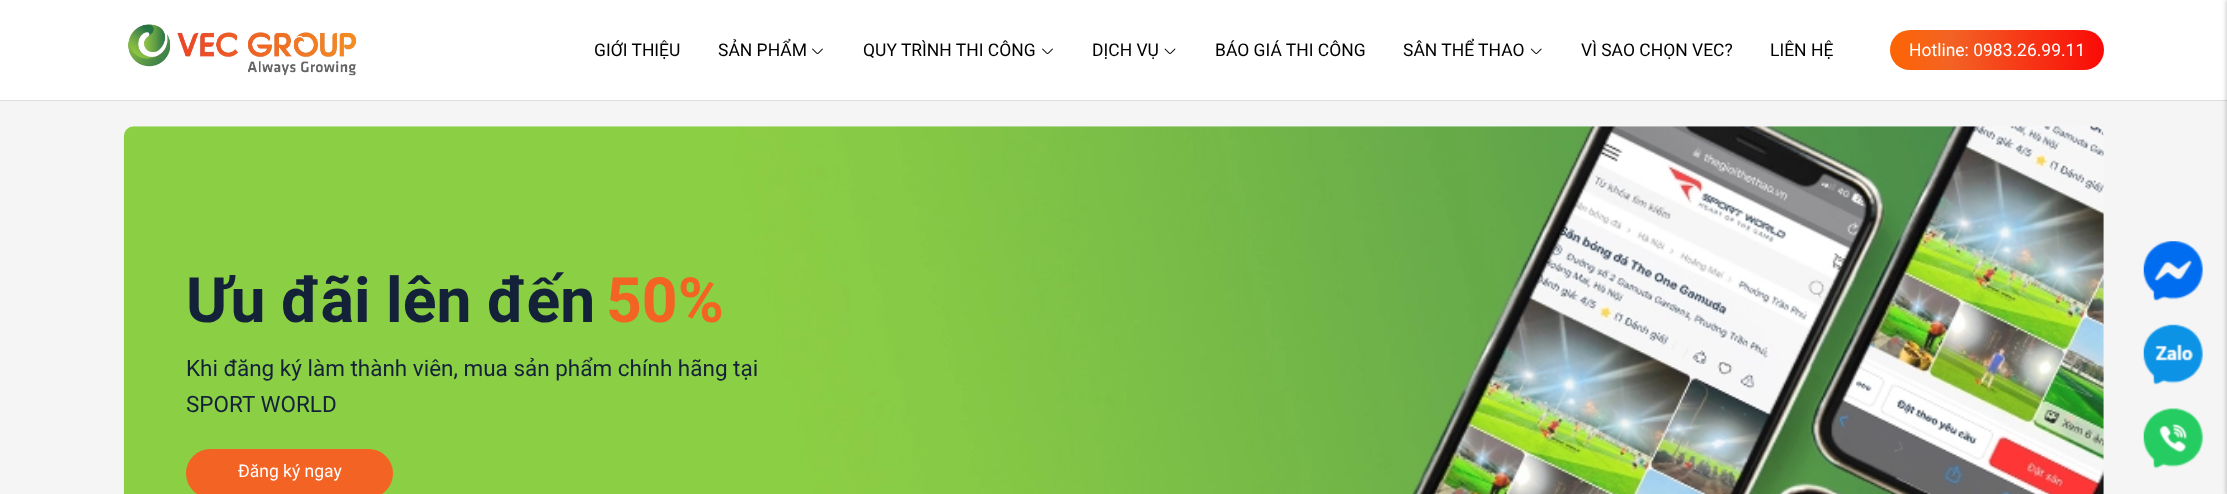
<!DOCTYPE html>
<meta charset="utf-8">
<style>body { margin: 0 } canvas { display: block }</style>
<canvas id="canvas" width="2227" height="494"></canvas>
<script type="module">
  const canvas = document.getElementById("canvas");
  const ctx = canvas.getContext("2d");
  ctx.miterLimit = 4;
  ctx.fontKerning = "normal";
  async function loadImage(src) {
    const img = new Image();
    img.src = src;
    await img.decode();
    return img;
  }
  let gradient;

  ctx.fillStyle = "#f5f5f5";
  ctx.fillRect(0, 0, 2227, 494);
  ctx.fillStyle = "#ffffff";
  ctx.fillRect(0, 0, 2227, 100);
  ctx.fillStyle = "#dddddd";
  ctx.fillRect(0, 100, 2227, 1);
  ctx.drawImage(await loadImage("img1.png"), 128, 24, 229, 52);
  ctx.font = "17.5px Roboto";
  ctx.fillStyle = "#000000";
  ctx.fillText("GIỚI THIỆU", 594, 56);
  ctx.fillText("SẢN PHẨM", 718, 56);
  ctx.drawImage(await loadImage("img2.png"), 812, 48, 11, 6);
  ctx.fillText("QUY TRÌNH THI CÔNG", 863, 56);
  ctx.drawImage(await loadImage("img2.png"), 1042, 48, 11, 6);
  ctx.fillText("DỊCH VỤ", 1092, 56);
  ctx.drawImage(await loadImage("img3.png"), 1164, 48, 12, 6);
  ctx.fillText("BÁO GIÁ THI CÔNG", 1215, 56);
  ctx.fillText("SÂN THỂ THAO", 1403, 56);
  ctx.drawImage(await loadImage("img4.png"), 1530, 48, 12, 6);
  ctx.fillText("VÌ SAO CHỌN VEC?", 1581, 56);
  ctx.fillText("LIÊN HỆ", 1770, 56);
  gradient = ctx.createLinearGradient(1890, 50, 2104, 50);
  gradient.addColorStop(0, "#fe6403");
  gradient.addColorStop(0.28, "#f36324");
  gradient.addColorStop(1, "#fa0a07");
  ctx.fillStyle = gradient;
  ctx.beginPath();
  ctx.roundRect(1890, 30, 214, 40, 20);
  ctx.fill();
  ctx.fillStyle = "#ffffff";
  ctx.fillText("Hotline: 0983.26.99.11", 1909, 56);
  ctx.fillStyle = "rgba(0, 0, 0, 0.2)";
  ctx.filter = "blur(2px)";
  ctx.beginPath();
  ctx.rect(2226, 0, 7, 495);
  ctx.fill();
  ctx.filter = "none";
  ctx.drawImage(await loadImage("img5.png"), 123, 126, 1981, 368);
  ctx.font = "bold 62.5px Roboto";
  ctx.fillStyle = "#142239";
  ctx.fillText("Ưu đãi lên đến", 186, 322);
  ctx.fillStyle = "#f36324";
  ctx.fillText("50%", 606, 322);
  ctx.font = "22.5px Roboto";
  ctx.fillStyle = "#142239";
  ctx.fillText("Khi đăng ký làm thành viên, mua sản phẩm chính hãng tại", 186, 376);
  ctx.fillText("SPORT WORLD", 186, 412);
  ctx.fillStyle = "#f36324";
  ctx.beginPath();
  ctx.roundRect(186, 449, 207, 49, 24.5);
  ctx.fill();
  ctx.font = "17.5px Roboto";
  ctx.fillStyle = "#ffffff";
  ctx.fillText("Đăng ký ngay", 238, 477);
  ctx.drawImage(await loadImage("img6.png"), 2143, 241, 60, 60);
  ctx.drawImage(await loadImage("img7.png"), 2143, 324, 60, 61);
  ctx.drawImage(await loadImage("img8.png"), 2143, 408, 60, 61);
</script>
